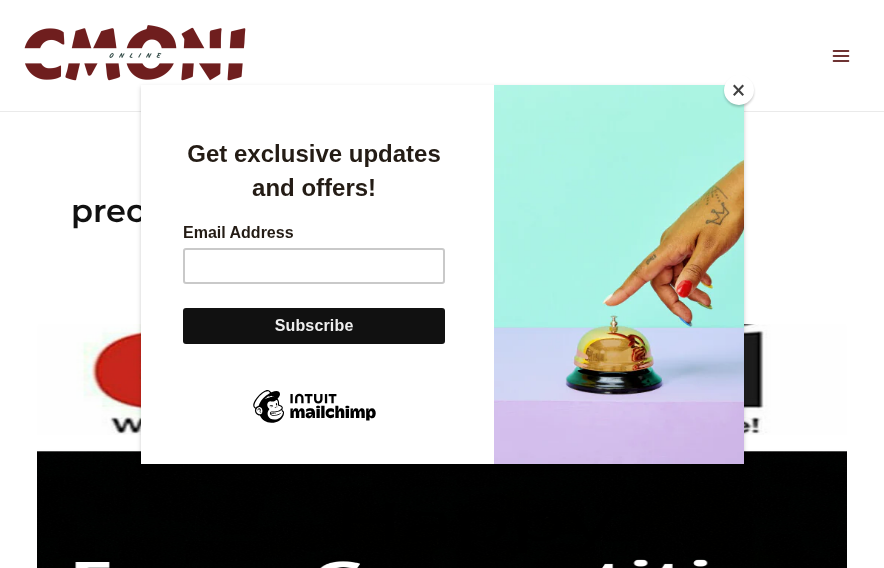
<!DOCTYPE html>
<meta charset="utf-8">
<style>body { margin: 0 } canvas { display: block }</style>
<canvas id="canvas" width="884" height="568"></canvas>
<script type="module">
  const canvas = document.getElementById("canvas");
  const ctx = canvas.getContext("2d");
  ctx.miterLimit = 4;
  ctx.fontKerning = "normal";
  async function loadImage(src) {
    const img = new Image();
    img.src = src;
    await img.decode();
    return img;
  }

  ctx.fillStyle = "#ffffff";
  ctx.fillRect(0, 0, 884, 568);
  ctx.fillStyle = "#eaeaea";
  ctx.fillRect(0, 111, 884, 1);
  ctx.drawImage(await loadImage("img1.png"), 24, 25, 222, 56);
  ctx.drawImage(await loadImage("img2.png"), 832, 50, 18, 12);
  ctx.font = "600 32px Montserrat";
  ctx.fillStyle = "#111111";
  ctx.fillText("prec", 71, 222);
  ctx.drawImage(await loadImage("img3.png"), 37, 324, 810, 244);
  ctx.fillStyle = "rgba(0, 0, 0, 0.2)";
  ctx.filter = "blur(2px)";
  ctx.beginPath();
  ctx.rect(141, 87, 603, 379);
  ctx.fill();
  ctx.filter = "none";
  ctx.drawImage(await loadImage("img4.png"), 141, 85, 603, 379);
  ctx.filter = "blur(1px)";
  ctx.beginPath();
  ctx.roundRect(724, 77, 30, 30, 15);
  ctx.fill();
  ctx.filter = "none";
  ctx.fillStyle = "#ffffff";
  ctx.beginPath();
  ctx.arc(739, 90, 15, 0, Math.PI * 2);
  ctx.fill();
  ctx.fillStyle = "#414141";
  ctx.beginPath();
  ctx.moveTo(742.5, 84.5);
  ctx.lineTo(744, 86);
  ctx.lineTo(734.5, 96);
  ctx.lineTo(733, 94.5);
  ctx.closePath();
  ctx.fill();
  ctx.beginPath();
  ctx.moveTo(733, 86);
  ctx.lineTo(734.5, 84.5);
  ctx.lineTo(744, 94.5);
  ctx.lineTo(742.5, 96);
  ctx.closePath();
  ctx.fill();
</script>
